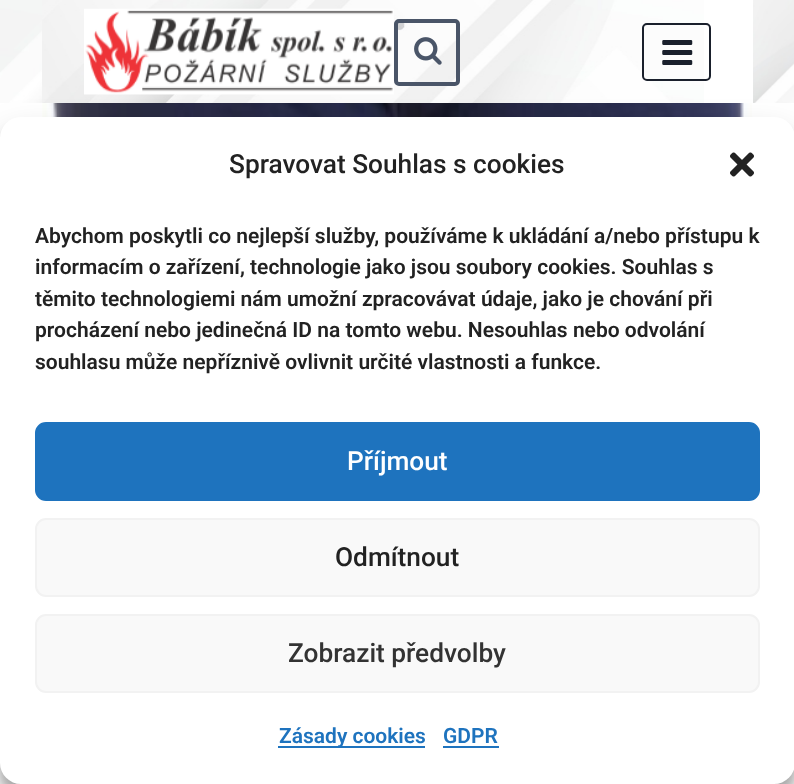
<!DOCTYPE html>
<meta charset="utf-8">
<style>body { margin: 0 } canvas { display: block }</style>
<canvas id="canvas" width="794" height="784"></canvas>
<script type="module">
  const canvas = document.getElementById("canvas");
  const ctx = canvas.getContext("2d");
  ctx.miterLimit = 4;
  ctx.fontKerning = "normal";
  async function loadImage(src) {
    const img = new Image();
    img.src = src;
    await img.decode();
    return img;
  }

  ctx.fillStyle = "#ffffff";
  ctx.fillRect(0, 0, 794, 784);
  ctx.drawImage(await loadImage("img1.png"), 0, 0, 794, 103);
  ctx.fillRect(704, 0, 49, 103);
  ctx.drawImage(await loadImage("img2.png"), 42, 0, 662, 103);
  ctx.drawImage(await loadImage("img3.png"), 84, 8, 310, 87);
  ctx.beginPath();
  ctx.roundRect(396, 21, 62, 63, 3);
  ctx.strokeStyle = "#4a5568";
  ctx.lineWidth = 4;
  ctx.stroke();
  ctx.drawImage(await loadImage("img4.png"), 414, 37, 28, 28);
  ctx.beginPath();
  ctx.roundRect(643, 24, 67, 56, 4);
  ctx.strokeStyle = "#1a202c";
  ctx.lineWidth = 2;
  ctx.stroke();
  ctx.drawImage(await loadImage("img5.png"), 662, 40, 31, 25);
  ctx.drawImage(await loadImage("img6.png"), 42, 103, 710, 14);
  ctx.fillStyle = "rgba(0, 0, 0, 0.23)";
  ctx.filter = "blur(5px)";
  ctx.beginPath();
  ctx.roundRect(0, 128, 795, 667, 21);
  ctx.fill();
  ctx.filter = "none";
  ctx.fillStyle = "rgba(0, 0, 0, 0.19)";
  ctx.filter = "blur(17.5px)";
  ctx.beginPath();
  ctx.roundRect(0, 135, 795, 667, 21);
  ctx.fill();
  ctx.filter = "none";
  ctx.fillStyle = "#ffffff";
  ctx.beginPath();
  ctx.roundRect(0, 117, 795, 667, 21);
  ctx.fill();
  ctx.font = "500 26.25px Roboto";
  ctx.fillStyle = "#222222";
  ctx.fillText("Spravovat Souhlas s cookies", 229, 173);
  ctx.drawImage(await loadImage("img7.png"), 730, 152, 24, 25);
  ctx.font = "600 21px Roboto";
  ctx.fillText("Abychom poskytli co nejlepší služby, používáme k ukládání a/nebo přístupu k", 35, 243);
  ctx.fillText("informacím o zařízení, technologie jako jsou soubory cookies. Souhlas s", 35, 274);
  ctx.fillText("těmito technologiemi nám umožní zpracovávat údaje, jako je chování při", 35, 306);
  ctx.fillText("procházení nebo jedinečná ID na tomto webu. Nesouhlas nebo odvolání", 35, 337);
  ctx.fillText("souhlasu může nepříznivě ovlivnit určité vlastnosti a funkce.", 35, 369);
  ctx.fillStyle = "#1e73be";
  ctx.beginPath();
  ctx.roundRect(36, 423, 723, 77, 10);
  ctx.fill();
  ctx.strokeStyle = "#1e73be";
  ctx.stroke();
  ctx.font = "500 26.25px Roboto";
  ctx.fillStyle = "#ffffff";
  ctx.fillText("Příjmout", 347, 470);
  ctx.fillStyle = "#f9f9f9";
  ctx.beginPath();
  ctx.roundRect(36, 519, 723, 77, 10);
  ctx.fill();
  ctx.strokeStyle = "#f2f2f2";
  ctx.stroke();
  ctx.fillStyle = "#222222";
  ctx.fillText("Odmítnout", 335, 566);
  ctx.fillStyle = "#f9f9f9";
  ctx.beginPath();
  ctx.roundRect(36, 615, 723, 77, 10);
  ctx.fill();
  ctx.stroke();
  ctx.fillStyle = "#333333";
  ctx.fillText("Zobrazit předvolby", 288, 662);
  ctx.fillStyle = "#1e73be";
  ctx.fillRect(278, 746, 147, 2);
  ctx.font = "600 21px Roboto";
  ctx.fillText("Zásady cookies", 279, 743);
  ctx.fillText("GDPR", 443, 743);
  ctx.fillRect(443, 746, 56, 2);
</script>
